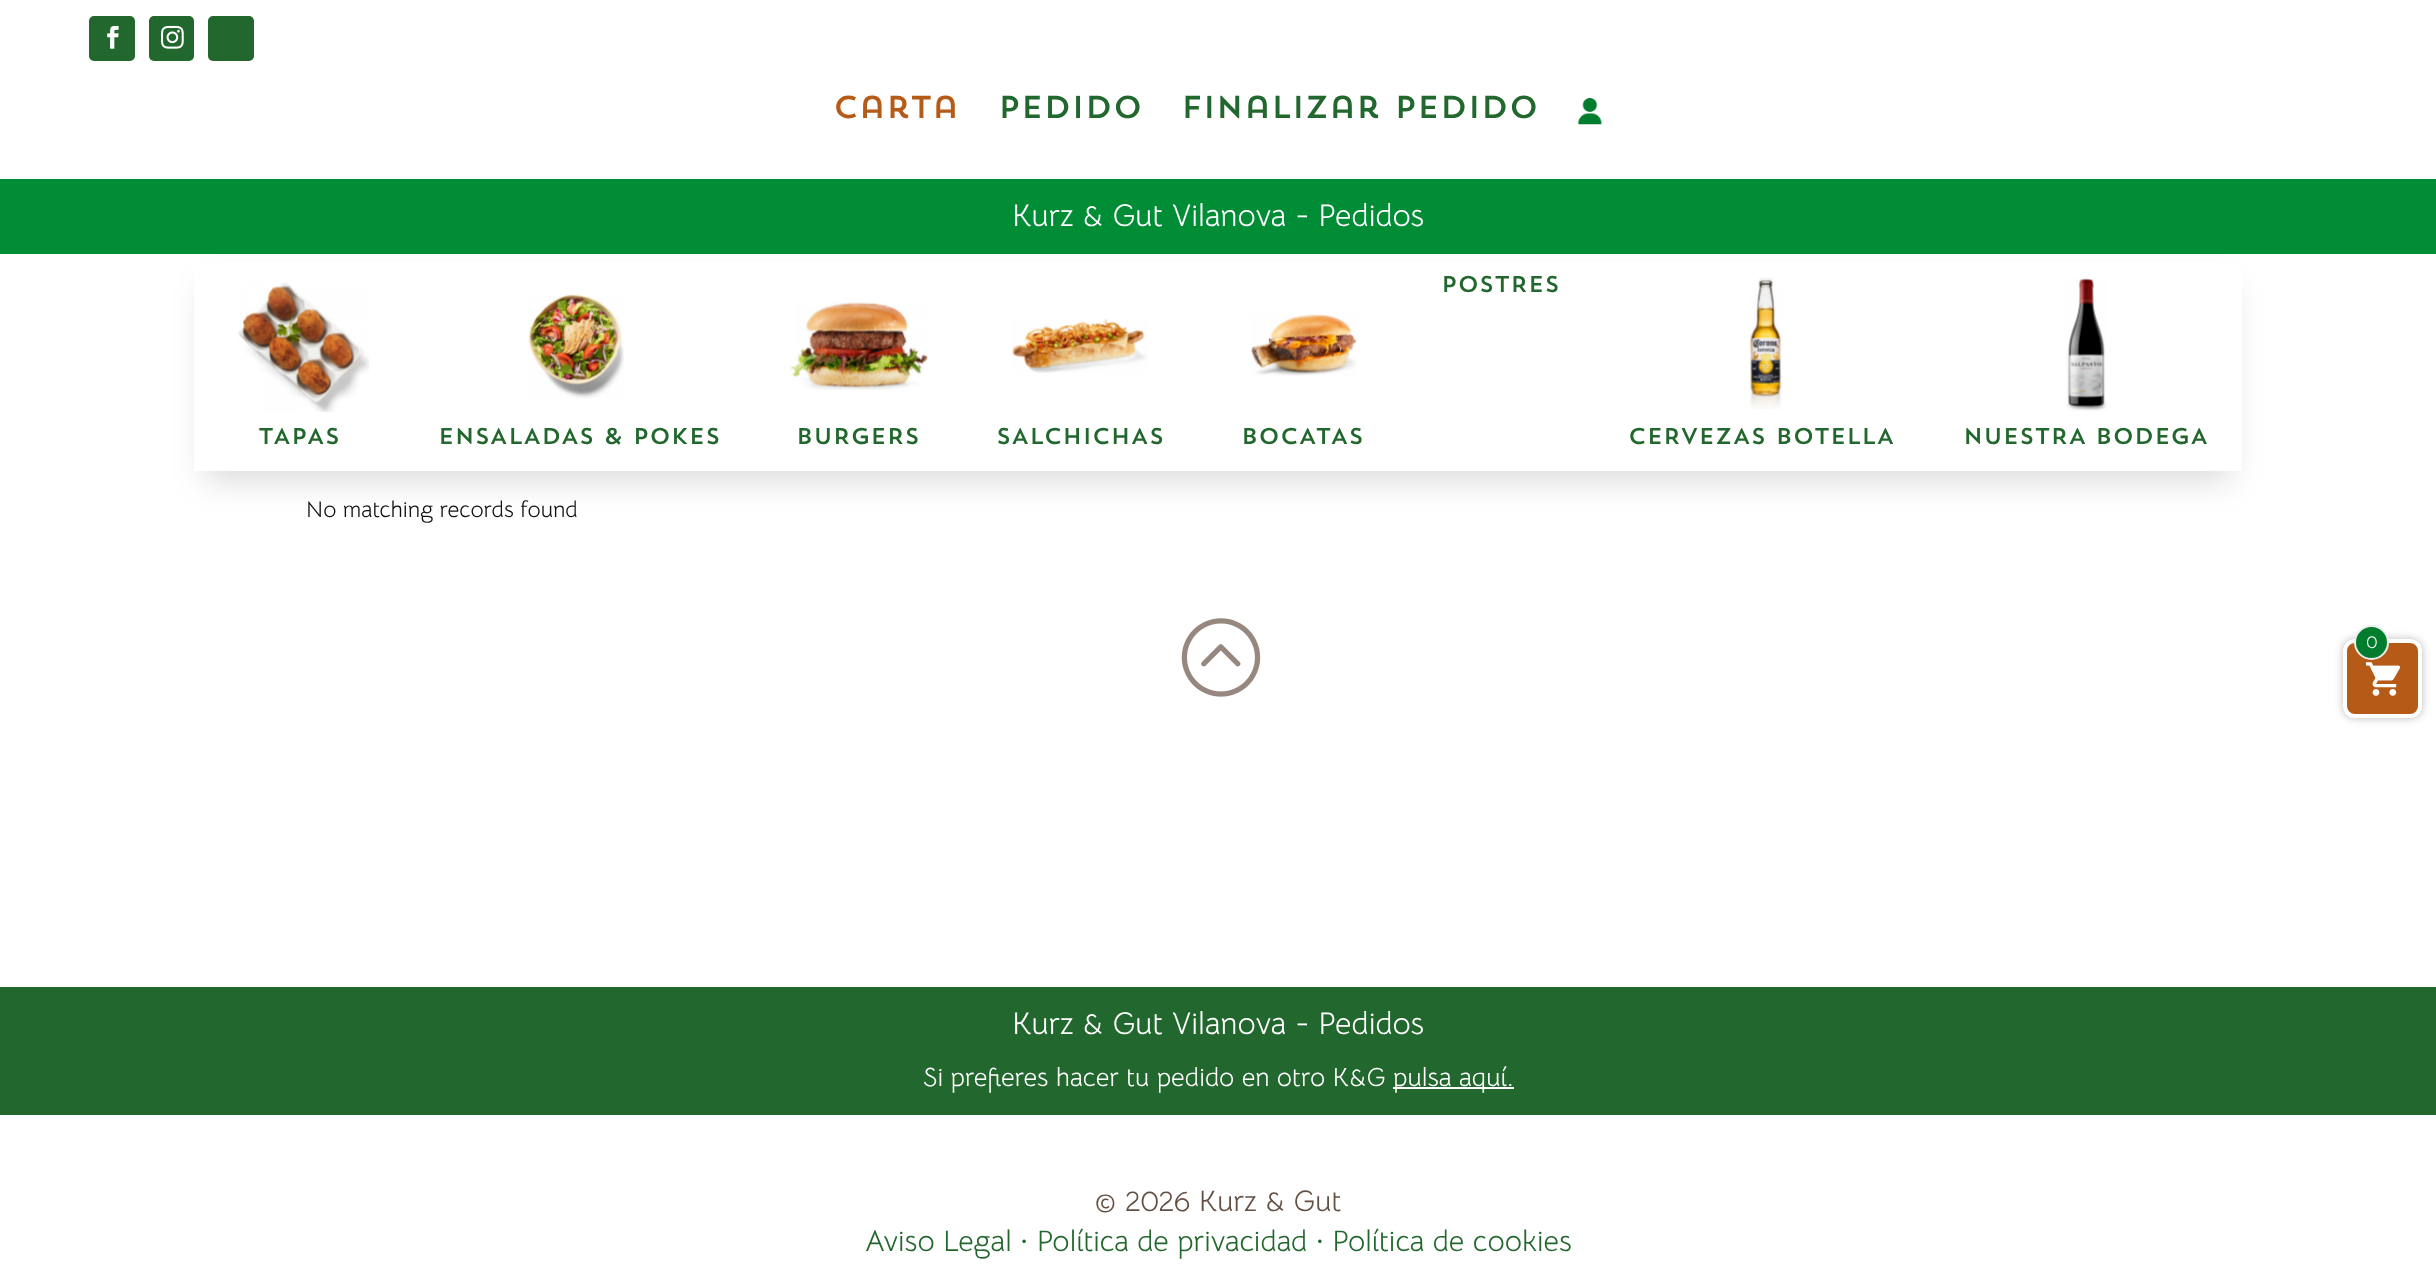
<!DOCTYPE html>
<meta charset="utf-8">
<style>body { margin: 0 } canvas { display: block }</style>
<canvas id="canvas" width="2436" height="1276"></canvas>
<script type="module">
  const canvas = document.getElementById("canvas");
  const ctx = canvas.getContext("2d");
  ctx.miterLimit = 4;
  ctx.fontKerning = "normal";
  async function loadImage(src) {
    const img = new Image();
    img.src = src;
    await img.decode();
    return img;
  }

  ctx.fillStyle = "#ffffff";
  ctx.fillRect(0, 0, 2436, 1276);
  ctx.fillStyle = "#22672d";
  ctx.beginPath();
  ctx.roundRect(89, 16, 46, 45, 5);
  ctx.fill();
  ctx.drawImage(await loadImage("img1.png"), 107, 25, 12, 24);
  ctx.beginPath();
  ctx.roundRect(149, 16, 45, 45, 5);
  ctx.fill();
  ctx.drawImage(await loadImage("img2.png"), 161, 25, 23, 24);
  ctx.beginPath();
  ctx.roundRect(208, 16, 46, 45, 5);
  ctx.fill();
  ctx.font = "200 31.5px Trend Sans";
  ctx.fillStyle = "#b55a17";
  ctx.fillText("Carta", 833, 118);
  ctx.fillStyle = "#22672d";
  ctx.fillText("Pedido", 998, 118);
  ctx.fillText("Finalizar pedido", 1181, 118);
  ctx.drawImage(await loadImage("img3.png"), 1578, 98, 24, 27);
  ctx.fillStyle = "rgba(0, 0, 0, 0.14)";
  ctx.filter = "blur(16px)";
  ctx.beginPath();
  ctx.rect(205, 285, 2026, 196);
  ctx.fill();
  ctx.filter = "none";
  ctx.fillStyle = "#008d36";
  ctx.fillRect(0, 179, 2436, 75);
  ctx.font = "31.5px Bellota Text";
  ctx.fillStyle = "#ffffff";
  ctx.fillText("Kurz & Gut Vilanova - Pedidos", 1012, 226);
  ctx.fillRect(194, 262, 2048, 209);
  ctx.font = "200 22.75px Trend Sans";
  ctx.fillStyle = "#22672d";
  ctx.fillText("POSTRES", 1441, 292);
  ctx.drawImage(await loadImage("img4.png"), 238, 282, 131, 130);
  ctx.fillText("TAPAS", 258, 444);
  ctx.drawImage(await loadImage("img5.png"), 528, 294, 96, 105);
  ctx.fillText("ENSALADAS & POKES", 438, 444);
  ctx.drawImage(await loadImage("img6.png"), 790, 302, 139, 88);
  ctx.fillText("BURGERS", 796, 444);
  ctx.drawImage(await loadImage("img7.png"), 1012, 318, 136, 55);
  ctx.fillText("SALCHICHAS", 996, 444);
  ctx.drawImage(await loadImage("img8.png"), 1251, 314, 106, 62);
  ctx.fillText("BOCATAS", 1241, 444);
  ctx.drawImage(await loadImage("img9.png"), 1749, 277, 34, 132);
  ctx.fillText("CERVEZAS BOTELLA", 1628, 444);
  ctx.drawImage(await loadImage("img10.png"), 2066, 278, 41, 133);
  ctx.fillText("NUESTRA BODEGA", 1963, 444);
  ctx.font = "22.75px Bellota Text";
  ctx.fillStyle = "#101010";
  ctx.fillText("No matching records found", 306, 517);
  ctx.drawImage(await loadImage("img11.png"), 1181, 618, 80, 79);
  ctx.fillStyle = "#22672d";
  ctx.fillRect(0, 987, 2436, 128);
  ctx.font = "31.5px Bellota Text";
  ctx.fillStyle = "#ffffff";
  ctx.fillText("Kurz & Gut Vilanova - Pedidos", 1012, 1034);
  ctx.font = "26.25px Bellota Text";
  ctx.fillText("Si prefieres hacer tu pedido en otro K&G", 923, 1086);
  ctx.fillRect(1393, 1087, 121, 2);
  ctx.fillText("pulsa aquí.", 1393, 1086);
  ctx.font = "29.75px Bellota Text";
  ctx.fillStyle = "#644f43";
  ctx.fillText("© 2026 Kurz & Gut", 1094, 1211);
  ctx.fillStyle = "#22672d";
  ctx.fillText("Aviso Legal · Política de privacidad · Política de cookies", 865, 1251);
  ctx.fillStyle = "#bbbbbb";
  ctx.filter = "blur(4.5px)";
  ctx.beginPath();
  ctx.roundRect(2343, 639, 79, 79, 12);
  ctx.fill();
  ctx.filter = "none";
  ctx.fillStyle = "#b55a17";
  ctx.beginPath();
  ctx.roundRect(2345, 641, 75, 75, 10);
  ctx.fill();
  ctx.strokeStyle = "#ffffff";
  ctx.lineWidth = 4;
  ctx.stroke();
  ctx.fillStyle = "#027d2e";
  ctx.beginPath();
  ctx.arc(2371.5, 642.5, 16.5, 0, Math.PI * 2);
  ctx.fill();
  ctx.strokeStyle = "#eeeeee";
  ctx.lineWidth = 2;
  ctx.stroke();
  ctx.font = "18px Bellota Text";
  ctx.fillStyle = "#ffffff";
  ctx.fillText("0", 2366, 648);
  ctx.drawImage(await loadImage("img12.png"), 2366, 662, 35, 34);
</script>
